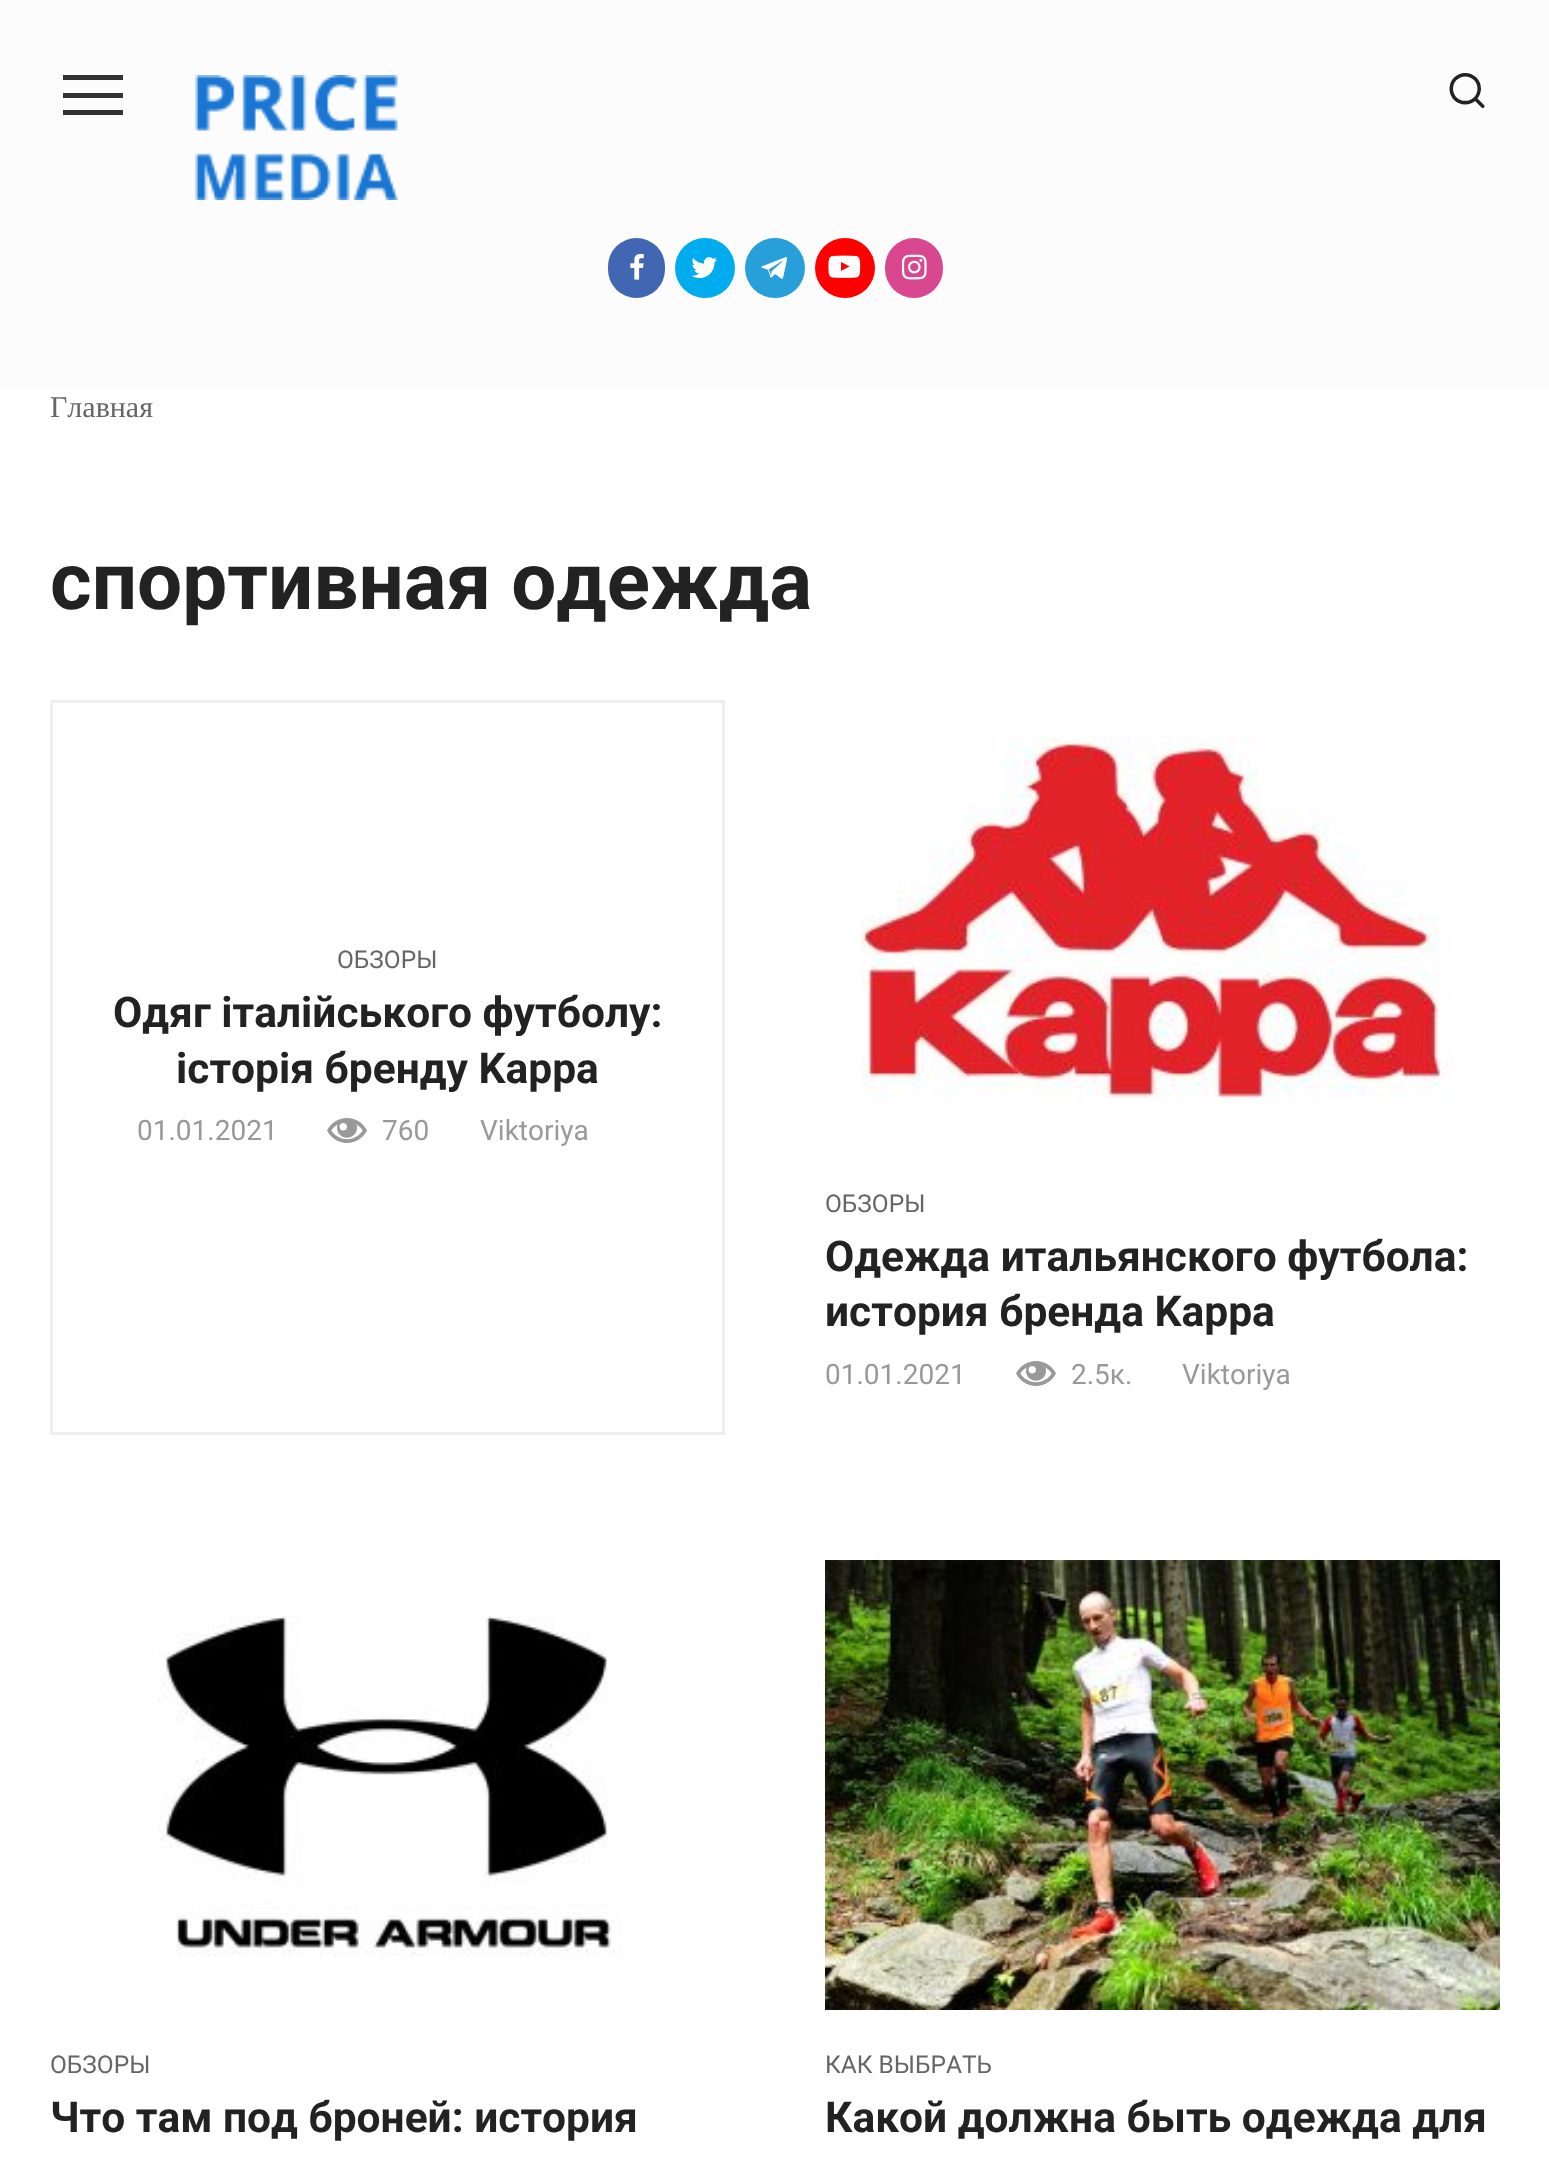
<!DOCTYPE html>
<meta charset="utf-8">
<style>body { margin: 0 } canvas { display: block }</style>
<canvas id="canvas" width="1549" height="2167"></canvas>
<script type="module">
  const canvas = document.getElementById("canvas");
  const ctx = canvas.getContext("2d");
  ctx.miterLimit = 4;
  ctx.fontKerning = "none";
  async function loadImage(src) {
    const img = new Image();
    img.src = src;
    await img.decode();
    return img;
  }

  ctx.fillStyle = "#ffffff";
  ctx.fillRect(0, 0, 1549, 2167);
  ctx.fillStyle = "#fcfcfc";
  ctx.fillRect(0, 0, 1549, 388);
  ctx.fillStyle = "#333333";
  ctx.fillRect(63, 75, 60, 5);
  ctx.fillRect(63, 93, 60, 5);
  ctx.fillRect(63, 110, 60, 5);
  ctx.drawImage(await loadImage("img1.png"), 195, 75, 203, 125);
  ctx.font = "42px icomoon";
  ctx.fillStyle = "#222222";
  ctx.fillText("🔍", 1446, 108);
  ctx.fillStyle = "#4267b2";
  ctx.beginPath();
  ctx.roundRect(608, 238, 57, 60, 28.5);
  ctx.fill();
  ctx.drawImage(await loadImage("img2.png"), 630, 253, 14, 27);
  ctx.fillStyle = "#00aced";
  ctx.beginPath();
  ctx.arc(705, 268, 30, 0, Math.PI * 2);
  ctx.fill();
  ctx.drawImage(await loadImage("img3.png"), 691, 257, 26, 21);
  ctx.fillStyle = "#289fd9";
  ctx.beginPath();
  ctx.arc(775, 268, 30, 0, Math.PI * 2);
  ctx.fill();
  ctx.drawImage(await loadImage("img4.png"), 761, 257, 27, 22);
  ctx.fillStyle = "#ff0000";
  ctx.beginPath();
  ctx.arc(845, 268, 30, 0, Math.PI * 2);
  ctx.fill();
  ctx.drawImage(await loadImage("img5.png"), 828, 255, 33, 23);
  ctx.fillStyle = "#d8478f";
  ctx.beginPath();
  ctx.roundRect(885, 238, 58, 60, 29);
  ctx.fill();
  ctx.drawImage(await loadImage("img6.png"), 901, 254, 26, 26);
  ctx.font = "30px Tinos";
  ctx.fillStyle = "#666666";
  ctx.fillText("Главная", 50, 417);
  ctx.font = "bold 80px Roboto";
  ctx.fillStyle = "#222222";
  ctx.fillText("спортивная одежда", 50, 609);
  ctx.strokeStyle = "#eeeeee";
  ctx.lineWidth = 3;
  ctx.strokeRect(51.5, 701.5, 672, 732);
  ctx.font = "24.5px Roboto";
  ctx.fillStyle = "#666666";
  ctx.fillText("ОБЗОРЫ", 337, 968);
  ctx.font = "bold 42.5px Roboto";
  ctx.fillStyle = "#222222";
  ctx.fillText("Одяг італійського футболу:", 113, 1027);
  ctx.fillText("історія бренду Kappa", 176, 1083);
  ctx.font = "28px Roboto";
  ctx.fillStyle = "#999999";
  ctx.fillText("01.01.2021", 137, 1140);
  ctx.font = "40px icomoon";
  ctx.fillText("👁", 327, 1148);
  ctx.font = "28px Roboto";
  ctx.fillText("760", 382, 1140);
  ctx.fillText("Viktoriya", 480, 1140);
  ctx.drawImage(await loadImage("img7.png"), 860, 735, 594, 364);
  ctx.font = "24.5px Roboto";
  ctx.fillStyle = "#666666";
  ctx.fillText("ОБЗОРЫ", 825, 1212);
  ctx.font = "bold 42.5px Roboto";
  ctx.fillStyle = "#222222";
  ctx.fillText("Одежда итальянского футбола:", 825, 1271);
  ctx.fillText("история бренда Kappa", 825, 1326);
  ctx.font = "28px Roboto";
  ctx.fillStyle = "#999999";
  ctx.fillText("01.01.2021", 825, 1384);
  ctx.font = "40px icomoon";
  ctx.fillText("👁", 1016, 1391);
  ctx.font = "28px Roboto";
  ctx.fillText("2.5к.", 1071, 1384);
  ctx.fillText("Viktoriya", 1182, 1384);
  ctx.drawImage(await loadImage("img8.png"), 158, 1615, 463, 342);
  ctx.font = "24.5px Roboto";
  ctx.fillStyle = "#666666";
  ctx.fillText("ОБЗОРЫ", 50, 2073);
  ctx.font = "bold 42.5px Roboto";
  ctx.fillStyle = "#222222";
  ctx.fillText("Что там под броней: история", 50, 2132);
  ctx.drawImage(await loadImage("img9.png"), 825, 1560, 675, 450);
  ctx.font = "24.5px Roboto";
  ctx.fillStyle = "#666666";
  ctx.fillText("КАК ВЫБРАТЬ", 825, 2073);
  ctx.font = "bold 42.5px Roboto";
  ctx.fillStyle = "#222222";
  ctx.fillText("Какой должна быть одежда для", 825, 2132);
</script>
